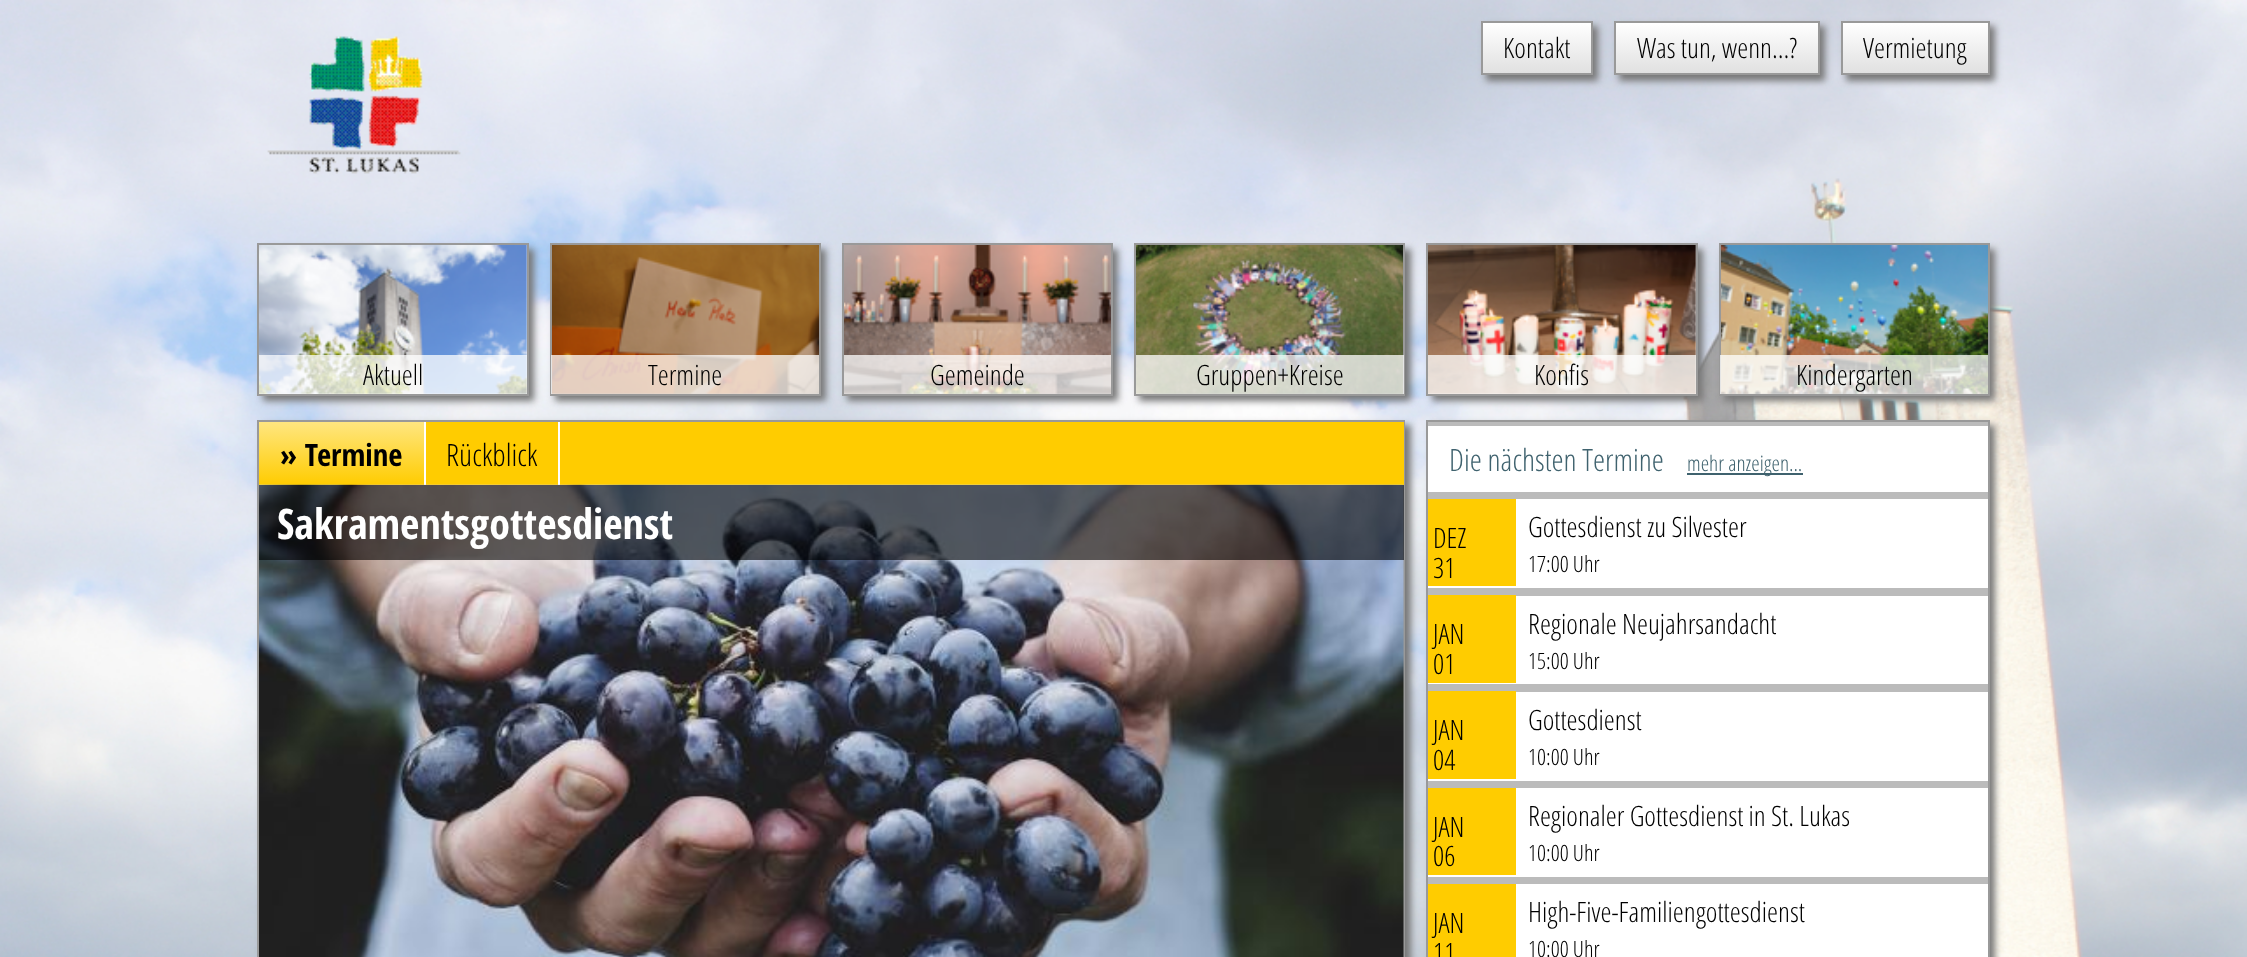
<!DOCTYPE html>
<meta charset="utf-8">
<style>body { margin: 0 } canvas { display: block }</style>
<canvas id="canvas" width="2247" height="957"></canvas>
<script type="module">
  const canvas = document.getElementById("canvas");
  const ctx = canvas.getContext("2d");
  ctx.miterLimit = 4;
  ctx.fontKerning = "normal";
  async function loadImage(src) {
    const img = new Image();
    img.src = src;
    await img.decode();
    return img;
  }
  let gradient;

  ctx.fillStyle = "#ffffff";
  ctx.fillRect(0, 0, 2247, 957);
  ctx.drawImage(await loadImage("img1.png"), 0, 0, 2247, 957);
  ctx.drawImage(await loadImage("img2.png"), 267, 36, 194, 138);
  ctx.fillStyle = "#777777";
  ctx.filter = "blur(3.5px)";
  ctx.beginPath();
  ctx.rect(1486, 26, 112, 55);
  ctx.fill();
  ctx.filter = "none";
  gradient = ctx.createLinearGradient(1537, 23, 1537, 74);
  gradient.addColorStop(0, "#ffffff");
  gradient.addColorStop(1, "#e0e0e0");
  ctx.fillStyle = gradient;
  ctx.fillRect(1483, 23, 108, 50);
  ctx.strokeStyle = "#999999";
  ctx.lineWidth = 2;
  ctx.strokeRect(1482, 22, 110, 52);
  ctx.font = "300 28px Open Sans Condensed";
  ctx.fillStyle = "#000000";
  ctx.fillText("Kontakt", 1503, 58);
  ctx.fillStyle = "#777777";
  ctx.filter = "blur(3.5px)";
  ctx.beginPath();
  ctx.rect(1619, 26, 206, 55);
  ctx.fill();
  ctx.filter = "none";
  gradient = ctx.createLinearGradient(1717, 23, 1717, 74);
  gradient.addColorStop(0, "#ffffff");
  gradient.addColorStop(1, "#e0e0e0");
  ctx.fillStyle = gradient;
  ctx.fillRect(1616, 23, 202, 50);
  ctx.strokeRect(1615, 22, 204, 52);
  ctx.fillStyle = "#000000";
  ctx.fillText("Was tun, wenn…?", 1637, 58);
  ctx.fillStyle = "#777777";
  ctx.filter = "blur(3.5px)";
  ctx.beginPath();
  ctx.rect(1846, 26, 149, 55);
  ctx.fill();
  ctx.filter = "none";
  gradient = ctx.createLinearGradient(1915, 23, 1915, 74);
  gradient.addColorStop(0, "#ffffff");
  gradient.addColorStop(1, "#e0e0e0");
  ctx.fillStyle = gradient;
  ctx.fillRect(1843, 23, 145, 50);
  ctx.strokeRect(1842, 22, 147, 52);
  ctx.fillStyle = "#000000";
  ctx.fillText("Vermietung", 1863, 58);
  ctx.fillStyle = "#777777";
  ctx.filter = "blur(3.5px)";
  ctx.beginPath();
  ctx.rect(263, 249, 271, 152);
  ctx.fill();
  ctx.filter = "none";
  ctx.fillStyle = "#ffffff";
  ctx.fillRect(259, 245, 268, 149);
  ctx.drawImage(await loadImage("img3.png"), 259, 245, 268, 149);
  ctx.strokeRect(258, 244, 270, 151);
  ctx.fillStyle = "rgba(255, 255, 255, 0.75)";
  ctx.fillRect(259, 355, 268, 39);
  ctx.fillStyle = "#000000";
  ctx.fillText("Aktuell", 363, 385);
  ctx.fillStyle = "#777777";
  ctx.filter = "blur(3.5px)";
  ctx.beginPath();
  ctx.rect(555, 249, 271, 152);
  ctx.fill();
  ctx.filter = "none";
  ctx.drawImage(await loadImage("img4.png"), 552, 245, 267, 149);
  ctx.strokeRect(551, 244, 269, 151);
  ctx.fillStyle = "rgba(255, 255, 255, 0.75)";
  ctx.fillRect(551, 355, 268, 39);
  ctx.fillStyle = "#000000";
  ctx.fillText("Termine", 648, 385);
  ctx.fillStyle = "#777777";
  ctx.filter = "blur(3.5px)";
  ctx.beginPath();
  ctx.rect(847, 249, 271, 152);
  ctx.fill();
  ctx.filter = "none";
  ctx.drawImage(await loadImage("img5.png"), 844, 245, 267, 149);
  ctx.strokeRect(843, 244, 269, 151);
  ctx.fillStyle = "rgba(255, 255, 255, 0.75)";
  ctx.fillRect(844, 355, 267, 39);
  ctx.fillStyle = "#000000";
  ctx.fillText("Gemeinde", 930, 385);
  ctx.fillStyle = "#777777";
  ctx.filter = "blur(3.5px)";
  ctx.beginPath();
  ctx.rect(1139, 249, 272, 152);
  ctx.fill();
  ctx.filter = "none";
  ctx.drawImage(await loadImage("img6.png"), 1136, 245, 267, 149);
  ctx.strokeRect(1135, 244, 269, 151);
  ctx.fillStyle = "rgba(255, 255, 255, 0.75)";
  ctx.fillRect(1136, 355, 268, 39);
  ctx.fillStyle = "#000000";
  ctx.fillText("Gruppen+Kreise", 1196, 385);
  ctx.fillStyle = "#777777";
  ctx.filter = "blur(3.5px)";
  ctx.beginPath();
  ctx.rect(1432, 249, 271, 152);
  ctx.fill();
  ctx.filter = "none";
  ctx.fillStyle = "#ffffff";
  ctx.fillRect(1428, 245, 268, 149);
  ctx.drawImage(await loadImage("img7.png"), 1428, 245, 268, 149);
  ctx.strokeRect(1427, 244, 270, 151);
  ctx.fillStyle = "rgba(255, 255, 255, 0.75)";
  ctx.fillRect(1428, 355, 268, 39);
  ctx.fillStyle = "#000000";
  ctx.fillText("Konfis", 1534, 385);
  ctx.fillStyle = "#777777";
  ctx.filter = "blur(3.5px)";
  ctx.beginPath();
  ctx.rect(1724, 249, 271, 152);
  ctx.fill();
  ctx.filter = "none";
  ctx.drawImage(await loadImage("img8.png"), 1721, 245, 267, 149);
  ctx.strokeRect(1720, 244, 269, 151);
  ctx.fillStyle = "rgba(255, 255, 255, 0.75)";
  ctx.fillRect(1720, 355, 268, 39);
  ctx.fillStyle = "#000000";
  ctx.fillText("Kindergarten", 1796, 385);
  ctx.fillStyle = "#777777";
  ctx.filter = "blur(3.5px)";
  ctx.beginPath();
  ctx.rect(263, 425, 1148, 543);
  ctx.fill();
  ctx.filter = "none";
  ctx.strokeRect(258, 421, 1146, 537);
  ctx.fillStyle = "#ffcc00";
  ctx.fillRect(426, 422, 978, 63);
  gradient = ctx.createLinearGradient(341, 422, 341, 485);
  gradient.addColorStop(0, "#ffe680");
  gradient.addColorStop(1, "#ffcc00");
  ctx.fillStyle = gradient;
  ctx.fillRect(259, 422, 165, 63);
  ctx.fillStyle = "#ffffff";
  ctx.fillRect(424, 422, 2, 63);
  ctx.font = "bold 30.75px Open Sans Condensed";
  ctx.fillStyle = "#000000";
  ctx.fillText("» Termine", 280, 466);
  ctx.fillStyle = "#ffffff";
  ctx.fillRect(558, 422, 2, 63);
  ctx.font = "300 30.75px Open Sans Condensed";
  ctx.fillStyle = "#000000";
  ctx.fillText("Rückblick", 446, 466);
  ctx.drawImage(await loadImage("img9.png"), 259, 484, 1145, 473);
  ctx.fillStyle = "rgba(0, 0, 0, 0.6)";
  ctx.fillRect(259, 485, 1145, 75);
  ctx.font = "bold 42px Open Sans Condensed";
  ctx.fillStyle = "#ffffff";
  ctx.fillText("Sakramentsgottesdienst", 277, 539);
  ctx.fillStyle = "#777777";
  ctx.filter = "blur(3.5px)";
  ctx.beginPath();
  ctx.rect(1432, 425, 563, 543);
  ctx.fill();
  ctx.filter = "none";
  ctx.fillStyle = "#ffffff";
  ctx.fillRect(1428, 426, 560, 531);
  ctx.strokeRect(1427, 421, 562, 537);
  ctx.fillStyle = "#bbbbbb";
  ctx.fillRect(1428, 422, 560, 4);
  ctx.fillRect(1428, 492, 560, 7);
  ctx.font = "300 30.75px Open Sans Condensed";
  ctx.fillStyle = "#3f626e";
  ctx.fillText("Die nächsten Termine", 1449, 471);
  ctx.fillRect(1687, 473, 116, 2);
  ctx.font = "300 21.5px Open Sans Condensed";
  ctx.fillText("mehr anzeigen...", 1687, 471);
  ctx.fillStyle = "#bbbbbb";
  ctx.fillRect(1428, 588, 560, 8);
  ctx.fillStyle = "#ffcc00";
  ctx.fillRect(1428, 499, 88, 87);
  ctx.font = "300 28px Open Sans Condensed";
  ctx.fillStyle = "#000000";
  ctx.fillText("DEZ", 1433, 548);
  ctx.fillText("31", 1433, 578);
  ctx.fillText("Gottesdienst zu Silvester", 1528, 537);
  ctx.font = "300 22.5px Open Sans Condensed";
  ctx.fillText("17:00 Uhr", 1528, 572);
  ctx.fillStyle = "#bbbbbb";
  ctx.fillRect(1428, 684, 560, 8);
  ctx.fillStyle = "#ffcc00";
  ctx.fillRect(1428, 595, 88, 88);
  ctx.font = "300 28px Open Sans Condensed";
  ctx.fillStyle = "#000000";
  ctx.fillText("JAN", 1433, 644);
  ctx.fillText("01", 1433, 674);
  ctx.fillText("Regionale Neujahrsandacht", 1528, 634);
  ctx.font = "300 22.5px Open Sans Condensed";
  ctx.fillText("15:00 Uhr", 1528, 669);
  ctx.fillStyle = "#bbbbbb";
  ctx.fillRect(1428, 781, 560, 7);
  ctx.fillStyle = "#ffcc00";
  ctx.fillRect(1428, 691, 88, 88);
  ctx.font = "300 28px Open Sans Condensed";
  ctx.fillStyle = "#000000";
  ctx.fillText("JAN", 1433, 740);
  ctx.fillText("04", 1433, 770);
  ctx.fillText("Gottesdienst", 1528, 730);
  ctx.font = "300 22.5px Open Sans Condensed";
  ctx.fillText("10:00 Uhr", 1528, 765);
  ctx.fillStyle = "#bbbbbb";
  ctx.fillRect(1428, 877, 560, 7);
  ctx.fillStyle = "#ffcc00";
  ctx.fillRect(1428, 788, 88, 87);
  ctx.font = "300 28px Open Sans Condensed";
  ctx.fillStyle = "#000000";
  ctx.fillText("JAN", 1433, 837);
  ctx.fillText("06", 1433, 866);
  ctx.fillText("Regionaler Gottesdienst in St. Lukas", 1528, 826);
  ctx.font = "300 22.5px Open Sans Condensed";
  ctx.fillText("10:00 Uhr", 1528, 861);
  ctx.fillStyle = "#ffcc00";
  ctx.fillRect(1428, 884, 88, 73);
  ctx.font = "300 28px Open Sans Condensed";
  ctx.fillStyle = "#000000";
  ctx.fillText("JAN", 1433, 933);
  ctx.fillText("11", 1433, 963);
  ctx.fillText("High-Five-Familiengottesdienst", 1528, 922);
  ctx.font = "300 22.5px Open Sans Condensed";
  ctx.fillText("10:00 Uhr", 1528, 957);
</script>
